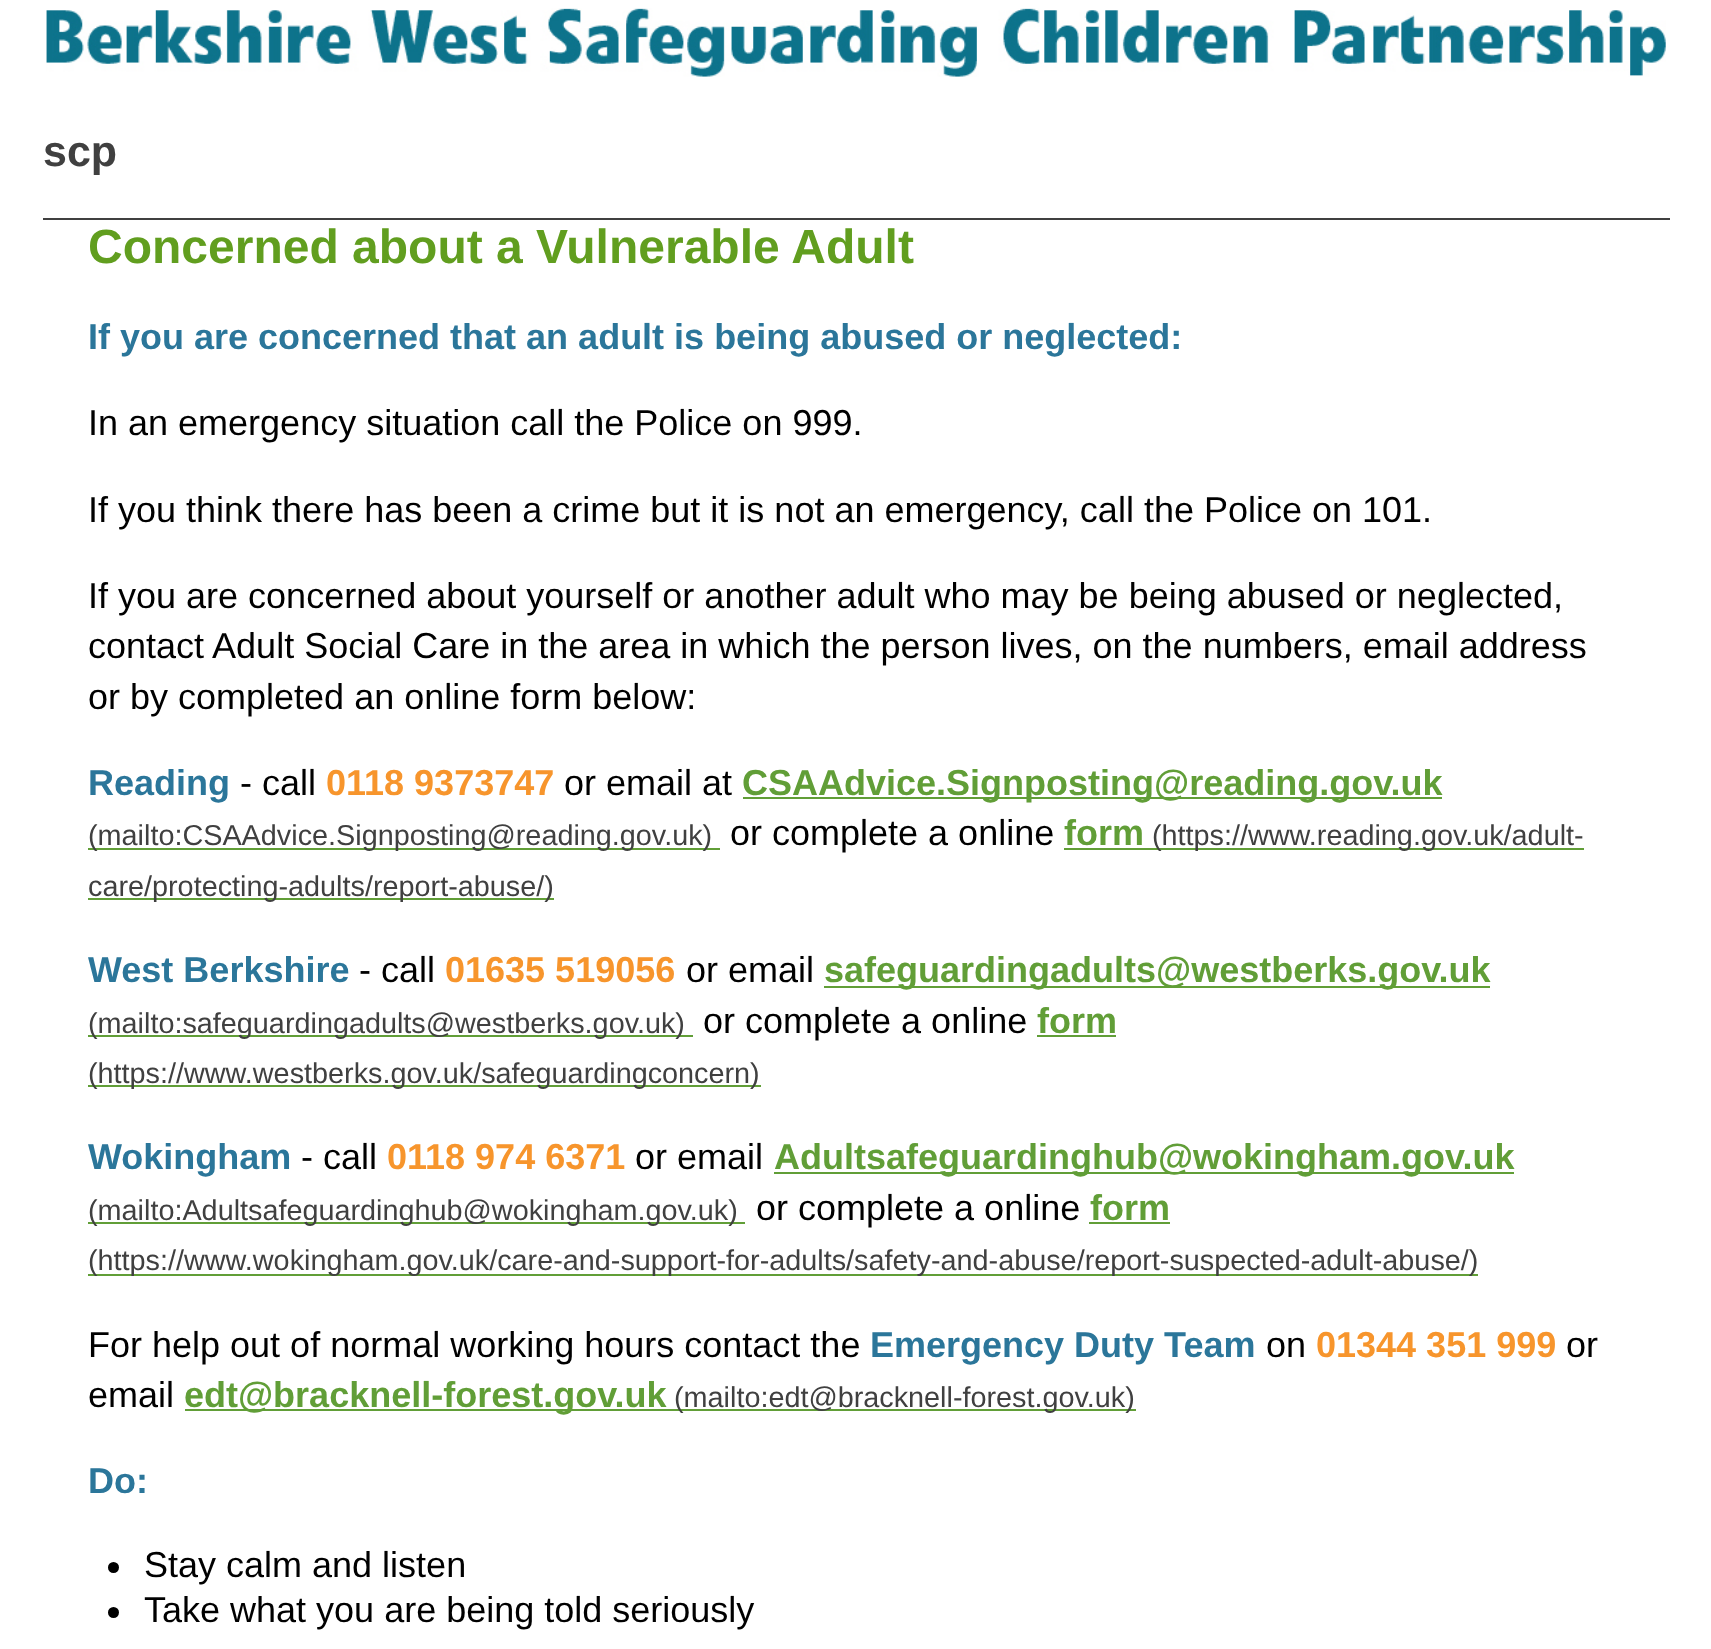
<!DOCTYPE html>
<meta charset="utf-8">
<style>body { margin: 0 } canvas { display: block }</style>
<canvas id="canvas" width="1711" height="1649"></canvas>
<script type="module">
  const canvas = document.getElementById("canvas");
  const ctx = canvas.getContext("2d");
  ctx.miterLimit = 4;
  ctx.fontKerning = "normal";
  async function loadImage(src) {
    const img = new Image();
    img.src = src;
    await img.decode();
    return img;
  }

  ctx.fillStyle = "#ffffff";
  ctx.fillRect(0, 0, 1711, 1649);
  ctx.drawImage(await loadImage("img1.png"), 46, 8, 1620, 69);
  ctx.fillStyle = "#404040";
  ctx.fillRect(43, 218, 1627, 2);
  ctx.font = "bold 43px Liberation Sans";
  ctx.fillText("scp", 43, 166);
  ctx.font = "bold 48px Liberation Sans";
  ctx.fillStyle = "#619e1f";
  ctx.fillText("Concerned about a Vulnerable Adult", 88, 263);
  ctx.font = "bold 36px Liberation Sans";
  ctx.fillStyle = "#2b769a";
  ctx.fillText("If you are concerned that an adult is being abused or neglected:", 88, 349);
  ctx.font = "36px Liberation Sans";
  ctx.fillStyle = "#000000";
  ctx.fillText("In an emergency situation call the Police on 999.", 88, 435);
  ctx.fillText("If you think there has been a crime but it is not an emergency, call the Police on 101.", 88, 522);
  ctx.fillText("If you are concerned about yourself or another adult who may be being abused or neglected,", 88, 608);
  ctx.fillText("contact Adult Social Care in the area in which the person lives, on the numbers, email address", 88, 658);
  ctx.fillText("or by completed an online form below:", 88, 709);
  ctx.font = "bold 36px Liberation Sans";
  ctx.fillStyle = "#2b769a";
  ctx.fillText("Reading", 88, 795);
  ctx.font = "36px Liberation Sans";
  ctx.fillStyle = "#000000";
  ctx.fillText("- call", 240, 795);
  ctx.font = "bold 36px Liberation Sans";
  ctx.fillStyle = "#f7952c";
  ctx.fillText("0118 9373747", 326, 795);
  ctx.font = "36px Liberation Sans";
  ctx.fillStyle = "#000000";
  ctx.fillText("or email at", 564, 795);
  ctx.fillStyle = "#619e37";
  ctx.fillRect(743, 797, 699, 2);
  ctx.font = "bold 36px Liberation Sans";
  ctx.fillText("CSAAdvice.Signposting@reading.gov.uk", 742, 795);
  ctx.fillRect(88, 848, 632, 2);
  ctx.font = "28.8px Liberation Sans";
  ctx.fillStyle = "#404040";
  ctx.fillText("(mailto:CSAAdvice.Signposting@reading.gov.uk)", 88, 845);
  ctx.font = "36px Liberation Sans";
  ctx.fillStyle = "#000000";
  ctx.fillText("or complete a online", 730, 845);
  ctx.font = "bold 36px Liberation Sans";
  ctx.fillStyle = "#619e37";
  ctx.fillText("form", 1064, 845);
  ctx.fillRect(1064, 848, 520, 2);
  ctx.font = "28.8px Liberation Sans";
  ctx.fillStyle = "#404040";
  ctx.fillText("(https://www.reading.gov.uk/adult-", 1152, 845);
  ctx.fillStyle = "#619e37";
  ctx.fillRect(88, 898, 466, 2);
  ctx.fillStyle = "#404040";
  ctx.fillText("care/protecting-adults/report-abuse/)", 88, 896);
  ctx.font = "bold 36px Liberation Sans";
  ctx.fillStyle = "#2b769a";
  ctx.fillText("West Berkshire", 88, 982);
  ctx.font = "36px Liberation Sans";
  ctx.fillStyle = "#000000";
  ctx.fillText("- call", 359, 982);
  ctx.font = "bold 36px Liberation Sans";
  ctx.fillStyle = "#f7952c";
  ctx.fillText("01635 519056", 445, 982);
  ctx.font = "36px Liberation Sans";
  ctx.fillStyle = "#000000";
  ctx.fillText("or email", 686, 982);
  ctx.fillStyle = "#619e37";
  ctx.fillRect(824, 986, 666, 2);
  ctx.font = "bold 36px Liberation Sans";
  ctx.fillText("safeguardingadults@westberks.gov.uk", 824, 982);
  ctx.fillRect(88, 1035, 605, 2);
  ctx.font = "28.8px Liberation Sans";
  ctx.fillStyle = "#404040";
  ctx.fillText("(mailto:safeguardingadults@westberks.gov.uk)", 88, 1033);
  ctx.font = "36px Liberation Sans";
  ctx.fillStyle = "#000000";
  ctx.fillText("or complete a online", 703, 1033);
  ctx.font = "bold 36px Liberation Sans";
  ctx.fillStyle = "#619e37";
  ctx.fillText("form", 1037, 1033);
  ctx.fillRect(1037, 1035, 79, 2);
  ctx.fillRect(88, 1085, 673, 2);
  ctx.font = "28.8px Liberation Sans";
  ctx.fillStyle = "#404040";
  ctx.fillText("(https://www.westberks.gov.uk/safeguardingconcern)", 88, 1083);
  ctx.font = "bold 36px Liberation Sans";
  ctx.fillStyle = "#2b769a";
  ctx.fillText("Wokingham", 88, 1169);
  ctx.font = "36px Liberation Sans";
  ctx.fillStyle = "#000000";
  ctx.fillText("- call", 301, 1169);
  ctx.font = "bold 36px Liberation Sans";
  ctx.fillStyle = "#f7952c";
  ctx.fillText("0118 974 6371", 387, 1169);
  ctx.font = "36px Liberation Sans";
  ctx.fillStyle = "#000000";
  ctx.fillText("or email", 635, 1169);
  ctx.fillStyle = "#619e37";
  ctx.fillRect(774, 1172, 740, 2);
  ctx.font = "bold 36px Liberation Sans";
  ctx.fillText("Adultsafeguardinghub@wokingham.gov.uk", 774, 1169);
  ctx.fillRect(88, 1222, 657, 2);
  ctx.font = "28.8px Liberation Sans";
  ctx.fillStyle = "#404040";
  ctx.fillText("(mailto:Adultsafeguardinghub@wokingham.gov.uk)", 88, 1220);
  ctx.font = "36px Liberation Sans";
  ctx.fillStyle = "#000000";
  ctx.fillText("or complete a online", 756, 1220);
  ctx.font = "bold 36px Liberation Sans";
  ctx.fillStyle = "#619e37";
  ctx.fillText("form", 1090, 1220);
  ctx.fillRect(1089, 1222, 81, 2);
  ctx.fillRect(88, 1274, 1390, 2);
  ctx.font = "28.8px Liberation Sans";
  ctx.fillStyle = "#404040";
  ctx.fillText("(https://www.wokingham.gov.uk/care-and-support-for-adults/safety-and-abuse/report-suspected-adult-abuse/)", 88, 1270);
  ctx.font = "36px Liberation Sans";
  ctx.fillStyle = "#000000";
  ctx.fillText("For help out of normal working hours contact the", 88, 1357);
  ctx.font = "bold 36px Liberation Sans";
  ctx.fillStyle = "#2b769a";
  ctx.fillText("Emergency Duty Team", 870, 1357);
  ctx.font = "36px Liberation Sans";
  ctx.fillStyle = "#000000";
  ctx.fillText("on", 1266, 1357);
  ctx.font = "bold 36px Liberation Sans";
  ctx.fillStyle = "#f7952c";
  ctx.fillText("01344 351 999", 1316, 1357);
  ctx.font = "36px Liberation Sans";
  ctx.fillStyle = "#000000";
  ctx.fillText("or", 1566, 1357);
  ctx.fillText("email", 88, 1407);
  ctx.fillStyle = "#619e37";
  ctx.fillRect(185, 1409, 481, 2);
  ctx.font = "bold 36px Liberation Sans";
  ctx.fillText("edt@bracknell-forest.gov.uk", 184, 1407);
  ctx.fillRect(666, 1409, 470, 2);
  ctx.font = "28.8px Liberation Sans";
  ctx.fillStyle = "#404040";
  ctx.fillText("(mailto:edt@bracknell-forest.gov.uk)", 674, 1407);
  ctx.font = "bold 36px Liberation Sans";
  ctx.fillStyle = "#2b769a";
  ctx.fillText("Do:", 88, 1493);
  ctx.fillStyle = "#000000";
  ctx.beginPath();
  ctx.arc(113.5, 1567.5, 5.5, 0, Math.PI * 2);
  ctx.fill();
  ctx.font = "36px Liberation Sans";
  ctx.fillText("Stay calm and listen", 144, 1577);
  ctx.beginPath();
  ctx.arc(113.5, 1612.5, 5.5, 0, Math.PI * 2);
  ctx.fill();
  ctx.fillText("Take what you are being told seriously", 144, 1622);
</script>
